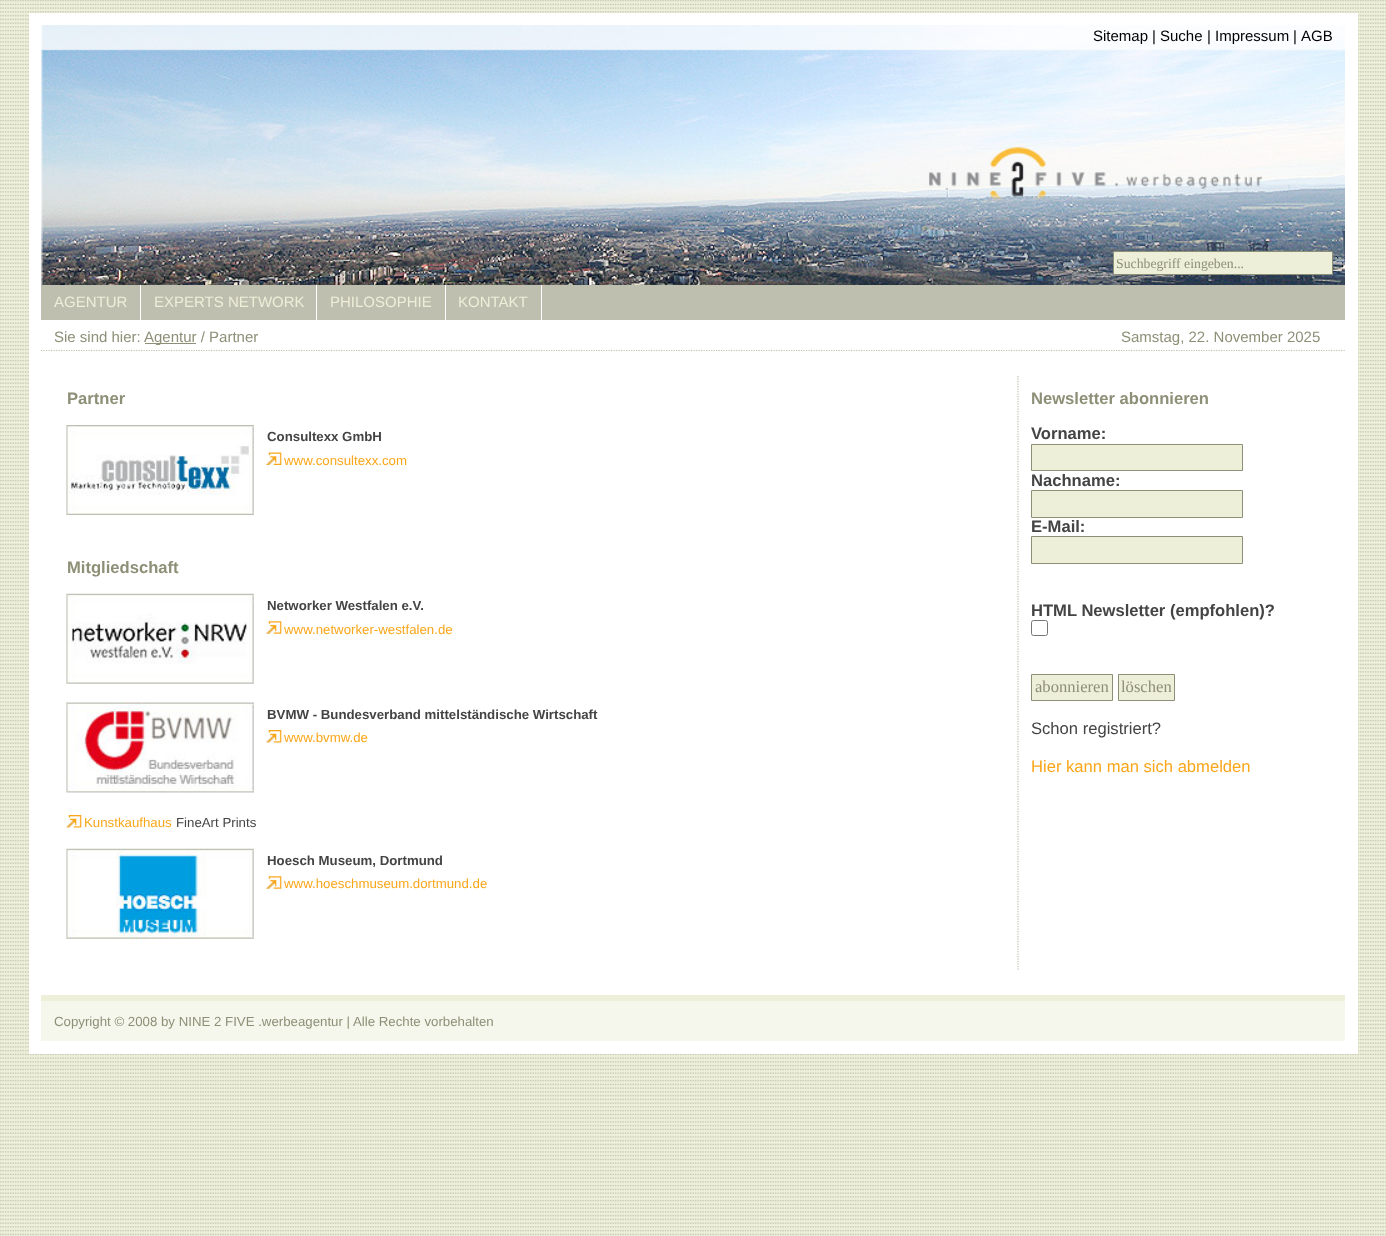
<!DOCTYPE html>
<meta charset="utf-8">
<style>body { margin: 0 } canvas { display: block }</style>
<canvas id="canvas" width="1386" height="1236"></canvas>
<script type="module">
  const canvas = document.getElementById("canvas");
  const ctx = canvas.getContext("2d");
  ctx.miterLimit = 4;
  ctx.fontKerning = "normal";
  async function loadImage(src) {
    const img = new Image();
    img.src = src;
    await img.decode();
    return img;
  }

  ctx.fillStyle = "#ffffff";
  ctx.fillRect(0, 0, 1386, 1236);
  ctx.drawImage(await loadImage("img1.png"), 0, 0, 1386, 1236);
  ctx.fillRect(29, 13, 1329, 1041);
  ctx.drawImage(await loadImage("img2.png"), 41, 25, 1304, 260);
  ctx.font = "15px Liberation Sans";
  ctx.fillStyle = "#000000";
  ctx.fillText("Sitemap", 1093, 41);
  ctx.fillText("|", 1152, 41);
  ctx.fillText("Suche", 1160, 41);
  ctx.fillText("|", 1207, 41);
  ctx.fillText("Impressum", 1215, 41);
  ctx.fillText("|", 1293, 41);
  ctx.fillText("AGB", 1301, 41);
  ctx.fillStyle = "#eeefd9";
  ctx.beginPath();
  ctx.rect(1113.5, 251.5, 219, 23);
  ctx.fill();
  ctx.strokeStyle = "#8e8f77";
  ctx.stroke();
  ctx.font = "13.75px Liberation Serif";
  ctx.fillStyle = "#8e8f77";
  ctx.fillText("Suchbegriff eingeben...", 1116, 268);
  ctx.fillStyle = "#bebfae";
  ctx.fillRect(317, 285, 1028, 35);
  ctx.fillRect(41, 285, 99, 35);
  ctx.font = "15px Liberation Sans";
  ctx.fillStyle = "#eeefd9";
  ctx.fillText("AGENTUR", 54, 307);
  ctx.fillStyle = "#bebfae";
  ctx.fillRect(141, 285, 175, 35);
  ctx.fillStyle = "#eeefd9";
  ctx.fillText("EXPERTS NETWORK", 154, 307);
  ctx.fillStyle = "#ffffff";
  ctx.fillRect(445, 285, 1, 35);
  ctx.fillStyle = "#eeefd9";
  ctx.fillText("PHILOSOPHIE", 330, 307);
  ctx.fillStyle = "#ffffff";
  ctx.fillRect(541, 285, 1, 35);
  ctx.fillStyle = "#eeefd9";
  ctx.fillText("KONTAKT", 458, 307);
  ctx.beginPath();
  ctx.moveTo(41, 350.5);
  ctx.lineTo(1345, 350.5);
  ctx.strokeStyle = "#bebfae";
  ctx.lineWidth = 1.2;
  ctx.setLineDash([1.25, 1.25]);
  ctx.stroke();
  ctx.fillStyle = "#8e8f77";
  ctx.fillText("Sie sind hier:", 54, 342);
  ctx.fillRect(145, 343, 51, 1);
  ctx.fillText("Agentur / Partner", 144, 342);
  ctx.fillText("Samstag, 22. November 2025", 1121, 342);
  ctx.beginPath();
  ctx.moveTo(1018, 376);
  ctx.lineTo(1018, 970);
  ctx.stroke();
  ctx.font = "bold 16.6px Liberation Sans";
  ctx.fillText("Partner", 67, 404);
  ctx.drawImage(await loadImage("img3.png"), 66, 425, 188, 90);
  ctx.font = "bold 13.25px Liberation Sans";
  ctx.fillStyle = "#444444";
  ctx.fillText("Consultexx GmbH", 267, 441);
  ctx.drawImage(await loadImage("img4.png"), 266, 452, 16, 13);
  ctx.font = "13.25px Liberation Sans";
  ctx.fillStyle = "#faa61a";
  ctx.fillText("www.consultexx.com", 284, 465);
  ctx.font = "bold 16.6px Liberation Sans";
  ctx.fillStyle = "#8e8f77";
  ctx.fillText("Mitgliedschaft", 67, 573);
  ctx.drawImage(await loadImage("img5.png"), 66, 593, 188, 91);
  ctx.font = "bold 13.25px Liberation Sans";
  ctx.fillStyle = "#444444";
  ctx.fillText("Networker Westfalen e.V.", 267, 610);
  ctx.drawImage(await loadImage("img6.png"), 266, 621, 16, 13);
  ctx.font = "13.25px Liberation Sans";
  ctx.fillStyle = "#faa61a";
  ctx.fillText("www.networker-westfalen.de", 284, 634);
  ctx.drawImage(await loadImage("img7.png"), 66, 702, 188, 91);
  ctx.font = "bold 13.25px Liberation Sans";
  ctx.fillStyle = "#444444";
  ctx.fillText("BVMW - Bundesverband mittelständische Wirtschaft", 267, 719);
  ctx.drawImage(await loadImage("img8.png"), 266, 730, 16, 13);
  ctx.font = "13.25px Liberation Sans";
  ctx.fillStyle = "#faa61a";
  ctx.fillText("www.bvmw.de", 284, 742);
  ctx.drawImage(await loadImage("img9.png"), 66, 815, 16, 13);
  ctx.fillText("Kunstkaufhaus", 84, 827);
  ctx.fillStyle = "#444444";
  ctx.fillText("FineArt Prints", 176, 827);
  ctx.drawImage(await loadImage("img10.png"), 66, 848, 188, 91);
  ctx.font = "bold 13.25px Liberation Sans";
  ctx.fillText("Hoesch Museum, Dortmund", 267, 865);
  ctx.drawImage(await loadImage("img6.png"), 266, 876, 16, 13);
  ctx.font = "13.25px Liberation Sans";
  ctx.fillStyle = "#faa61a";
  ctx.fillText("www.hoeschmuseum.dortmund.de", 284, 888);
  ctx.font = "bold 16.6px Liberation Sans";
  ctx.fillStyle = "#8e8f77";
  ctx.fillText("Newsletter abonnieren", 1031, 404);
  ctx.fillStyle = "#444444";
  ctx.fillText("Vorname:", 1031, 439);
  ctx.fillStyle = "#eeefd9";
  ctx.beginPath();
  ctx.rect(1031.5, 444.5, 211, 26);
  ctx.fill();
  ctx.strokeStyle = "#8e8f77";
  ctx.lineWidth = 1;
  ctx.setLineDash([]);
  ctx.stroke();
  ctx.fillStyle = "#444444";
  ctx.fillText("Nachname:", 1031, 486);
  ctx.fillStyle = "#eeefd9";
  ctx.beginPath();
  ctx.rect(1031.5, 490.5, 211, 27);
  ctx.fill();
  ctx.stroke();
  ctx.fillStyle = "#444444";
  ctx.fillText("E-Mail:", 1031, 532);
  ctx.fillStyle = "#eeefd9";
  ctx.beginPath();
  ctx.rect(1031.5, 536.5, 211, 27);
  ctx.fill();
  ctx.stroke();
  ctx.fillStyle = "#444444";
  ctx.fillText("HTML Newsletter (empfohlen)?", 1031, 616);
  ctx.beginPath();
  ctx.roundRect(1031.5, 620.5, 16, 15, 2);
  ctx.strokeStyle = "#767676";
  ctx.stroke();
  ctx.fillStyle = "#eeefd9";
  ctx.beginPath();
  ctx.rect(1031.5, 674.5, 81, 26);
  ctx.fill();
  ctx.strokeStyle = "#8e8f77";
  ctx.stroke();
  ctx.font = "16.6px Liberation Serif";
  ctx.fillStyle = "#8e8f77";
  ctx.fillText("abonnieren", 1035, 692);
  ctx.fillStyle = "#eeefd9";
  ctx.beginPath();
  ctx.rect(1118.5, 674.5, 56, 26);
  ctx.fill();
  ctx.stroke();
  ctx.fillStyle = "#8e8f77";
  ctx.fillText("löschen", 1121, 692);
  ctx.font = "16.6px Liberation Sans";
  ctx.fillStyle = "#444444";
  ctx.fillText("Schon registriert?", 1031, 734);
  ctx.fillStyle = "#faa61a";
  ctx.fillText("Hier kann man sich abmelden", 1031, 772);
  ctx.fillStyle = "#f6f7ec";
  ctx.fillRect(41, 1001, 1304, 40);
  ctx.fillStyle = "#eeefd9";
  ctx.fillRect(41, 995, 1304, 6);
  ctx.font = "13.25px Liberation Sans";
  ctx.fillStyle = "#8e8f77";
  ctx.fillText("Copyright © 2008 by NINE 2 FIVE .werbeagentur | Alle Rechte vorbehalten", 54, 1026);
</script>
